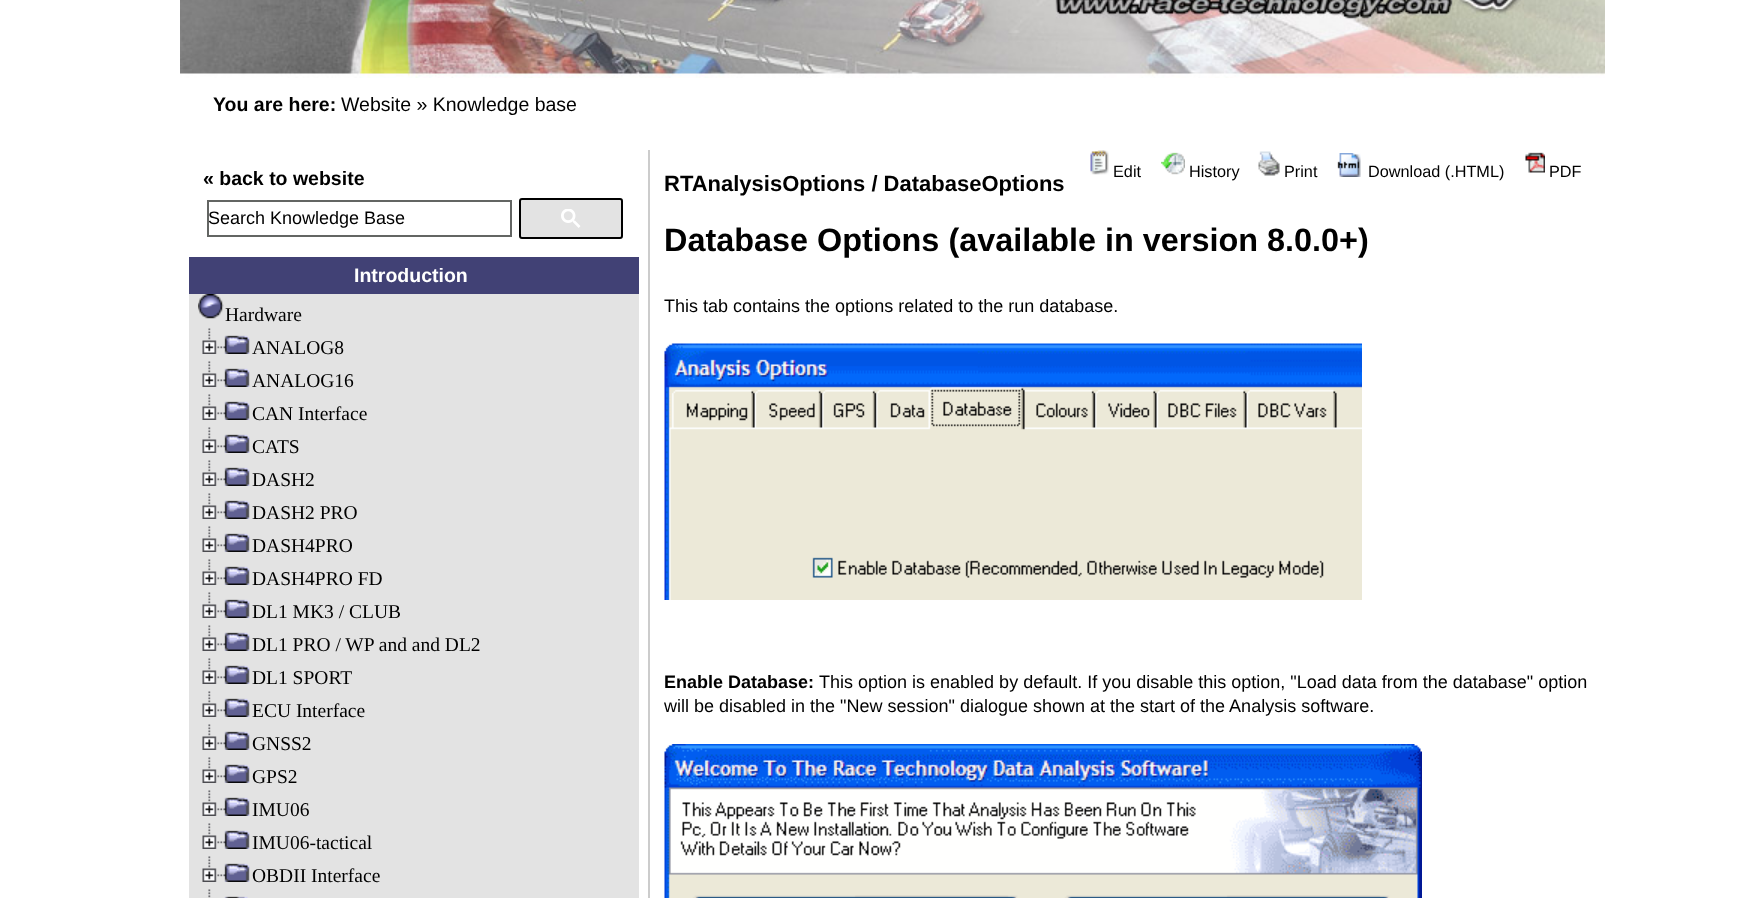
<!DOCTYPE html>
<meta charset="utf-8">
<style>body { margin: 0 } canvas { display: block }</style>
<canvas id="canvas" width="1758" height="898"></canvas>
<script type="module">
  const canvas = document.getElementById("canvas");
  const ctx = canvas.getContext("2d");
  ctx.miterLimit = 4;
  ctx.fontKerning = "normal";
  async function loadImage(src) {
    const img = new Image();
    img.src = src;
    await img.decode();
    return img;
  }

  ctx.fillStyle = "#ffffff";
  ctx.fillRect(0, 0, 1758, 898);
  ctx.drawImage(await loadImage("img1.png"), 180, 0, 1425, 78);
  ctx.font = "bold 19.5px Liberation Sans";
  ctx.fillStyle = "#000000";
  ctx.fillText("You are here:", 213, 111);
  ctx.font = "19.5px Liberation Sans";
  ctx.fillText("Website » Knowledge base", 341, 111);
  ctx.fillStyle = "#cccccc";
  ctx.fillRect(648, 150, 2, 748);
  ctx.font = "bold 19.5px Liberation Sans";
  ctx.fillStyle = "#000000";
  ctx.fillText("« back to website", 203, 185);
  ctx.strokeStyle = "#636563";
  ctx.lineWidth = 2;
  ctx.strokeRect(208, 201, 303, 35);
  ctx.font = "18px Liberation Sans";
  ctx.fillText("Search Knowledge Base", 208, 224);
  ctx.fillStyle = "#e3e3e3";
  ctx.beginPath();
  ctx.roundRect(520, 199, 102, 39, 2);
  ctx.fill();
  ctx.strokeStyle = "#000000";
  ctx.stroke();
  ctx.drawImage(await loadImage("img2.png"), 561, 209, 20, 19);
  ctx.fillStyle = "#414175";
  ctx.fillRect(189, 257, 450, 37);
  ctx.font = "bold 19.5px Liberation Sans";
  ctx.fillStyle = "#ffffff";
  ctx.fillText("Introduction", 354, 282);
  ctx.fillStyle = "#e3e3e3";
  ctx.fillRect(189, 294, 450, 604);
  ctx.drawImage(await loadImage("img3.png"), 198, 294, 26, 25);
  ctx.font = "19.5px Liberation Serif";
  ctx.fillStyle = "#000000";
  ctx.fillText("Hardware", 225, 321);
  ctx.drawImage(await loadImage("img4.png"), 202, 328, 48, 26);
  ctx.fillText("ANALOG8", 252, 354);
  ctx.drawImage(await loadImage("img4.png"), 202, 361, 48, 26);
  ctx.fillText("ANALOG16", 252, 387);
  ctx.drawImage(await loadImage("img4.png"), 202, 394, 48, 26);
  ctx.fillText("CAN Interface", 252, 420);
  ctx.drawImage(await loadImage("img4.png"), 202, 427, 48, 26);
  ctx.fillText("CATS", 252, 453);
  ctx.drawImage(await loadImage("img4.png"), 202, 460, 48, 26);
  ctx.fillText("DASH2", 252, 486);
  ctx.drawImage(await loadImage("img4.png"), 202, 493, 48, 26);
  ctx.fillText("DASH2 PRO", 252, 519);
  ctx.drawImage(await loadImage("img4.png"), 202, 526, 48, 26);
  ctx.fillText("DASH4PRO", 252, 552);
  ctx.drawImage(await loadImage("img4.png"), 202, 559, 48, 26);
  ctx.fillText("DASH4PRO FD", 252, 585);
  ctx.drawImage(await loadImage("img4.png"), 202, 592, 48, 26);
  ctx.fillText("DL1 MK3 / CLUB", 252, 618);
  ctx.drawImage(await loadImage("img4.png"), 202, 625, 48, 26);
  ctx.fillText("DL1 PRO / WP and and DL2", 252, 651);
  ctx.drawImage(await loadImage("img4.png"), 202, 658, 48, 26);
  ctx.fillText("DL1 SPORT", 252, 684);
  ctx.drawImage(await loadImage("img4.png"), 202, 691, 48, 26);
  ctx.fillText("ECU Interface", 252, 717);
  ctx.drawImage(await loadImage("img4.png"), 202, 724, 48, 26);
  ctx.fillText("GNSS2", 252, 750);
  ctx.drawImage(await loadImage("img4.png"), 202, 757, 48, 26);
  ctx.fillText("GPS2", 252, 783);
  ctx.drawImage(await loadImage("img4.png"), 202, 790, 48, 26);
  ctx.fillText("IMU06", 252, 816);
  ctx.drawImage(await loadImage("img4.png"), 202, 823, 48, 26);
  ctx.fillText("IMU06-tactical", 252, 849);
  ctx.drawImage(await loadImage("img4.png"), 202, 856, 48, 26);
  ctx.fillText("OBDII Interface", 252, 882);
  ctx.drawImage(await loadImage("img5.png"), 208, 889, 40, 9);
  ctx.drawImage(await loadImage("img6.png"), 1090, 150, 19, 25);
  ctx.font = "16.25px Liberation Sans";
  ctx.fillText("Edit", 1113, 177);
  ctx.drawImage(await loadImage("img7.png"), 1161, 152, 24, 23);
  ctx.fillText("History", 1189, 177);
  ctx.drawImage(await loadImage("img8.png"), 1258, 151, 22, 25);
  ctx.fillText("Print", 1284, 177);
  ctx.drawImage(await loadImage("img9.png"), 1337, 153, 24, 24);
  ctx.fillText("Download (.HTML)", 1368, 177);
  ctx.drawImage(await loadImage("img10.png"), 1525, 152, 20, 21);
  ctx.fillText("PDF", 1549, 177);
  ctx.font = "bold 22px Liberation Sans";
  ctx.fillText("RTAnalysisOptions / DatabaseOptions", 664, 191);
  ctx.font = "bold 32.4px Liberation Sans";
  ctx.fillText("Database Options (available in version 8.0.0+)", 664, 251);
  ctx.font = "18px Liberation Sans";
  ctx.fillText("This tab contains the options related to the run database.", 664, 312);
  ctx.drawImage(await loadImage("img11.png"), 664, 343, 698, 257);
  ctx.font = "bold 18px Liberation Sans";
  ctx.fillText("Enable Database:", 664, 688);
  ctx.font = "18px Liberation Sans";
  ctx.fillText("This option is enabled by default. If you disable this option, \"Load data from the database\" option", 819, 688);
  ctx.fillText("will be disabled in the \"New session\" dialogue shown at the start of the Analysis software.", 664, 712);
  ctx.drawImage(await loadImage("img12.png"), 664, 744, 758, 154);
</script>
